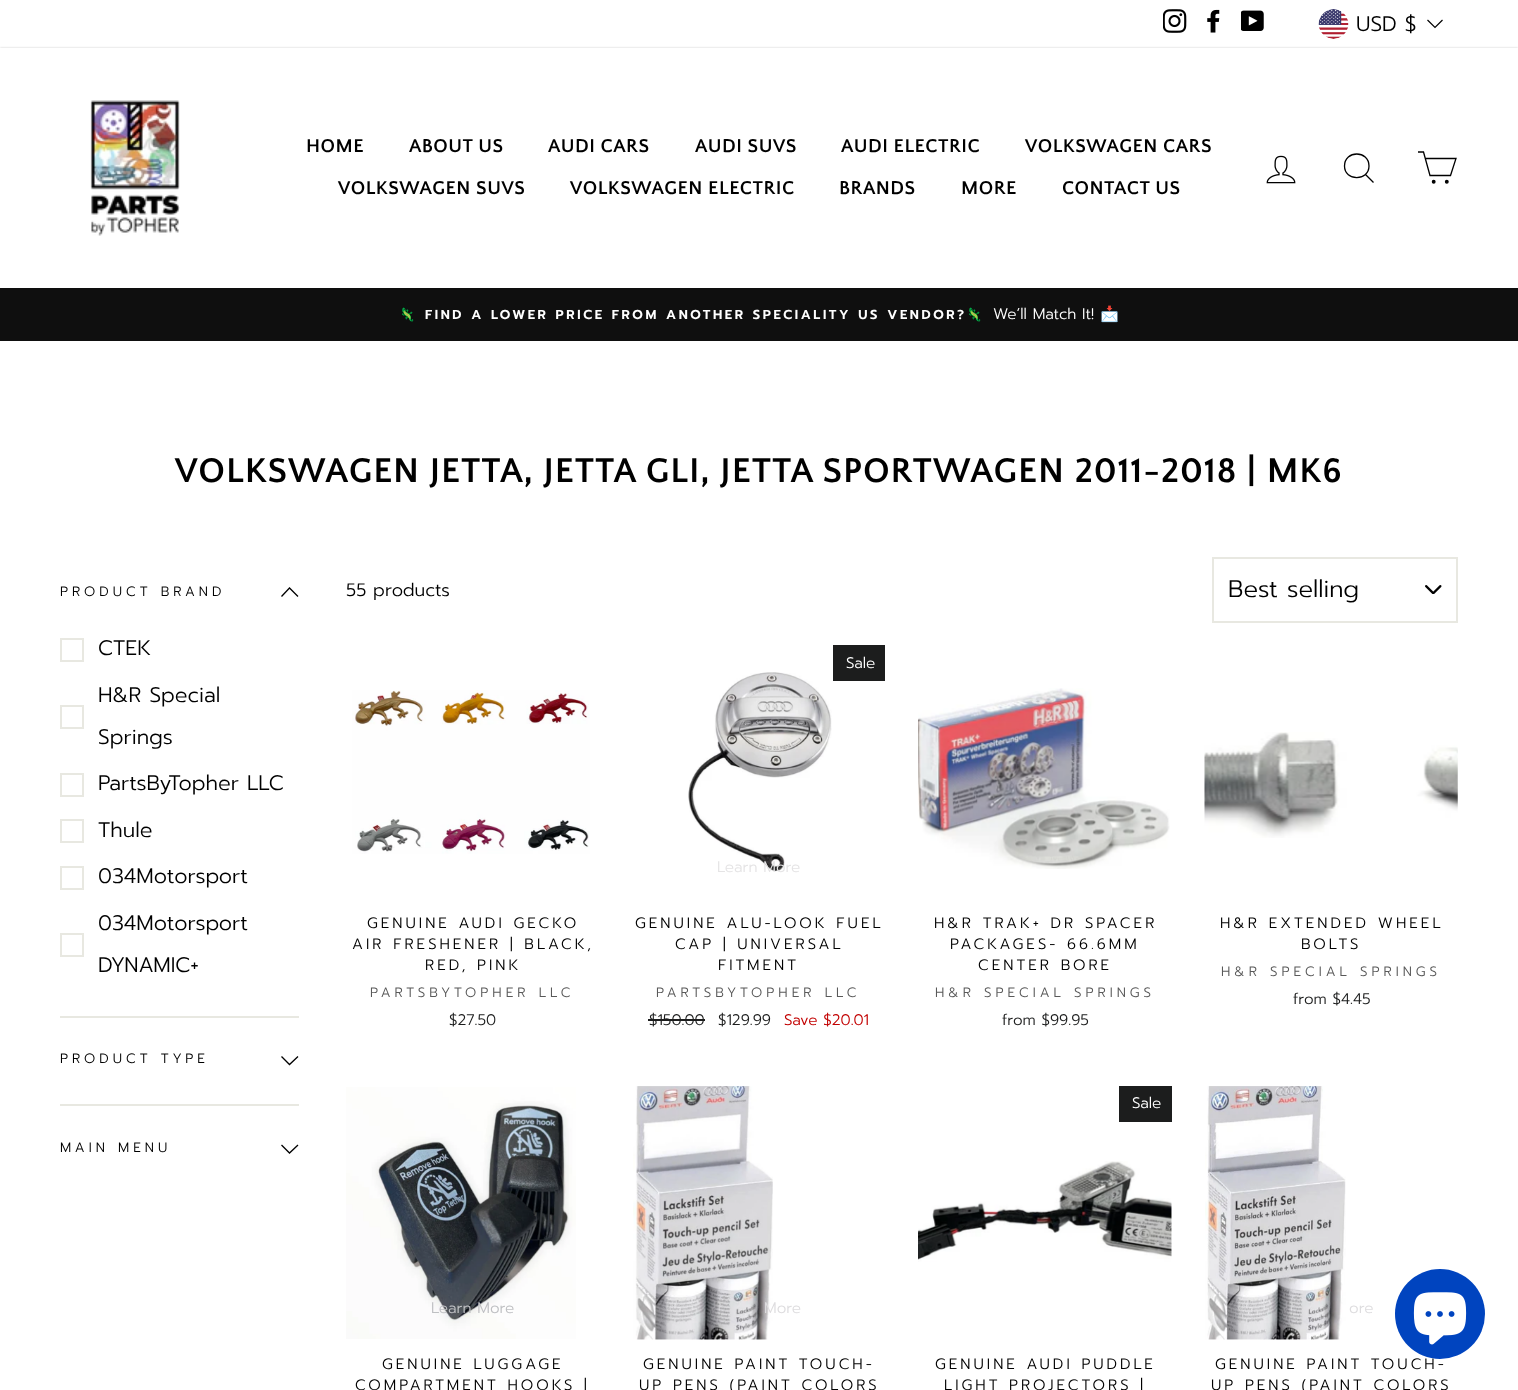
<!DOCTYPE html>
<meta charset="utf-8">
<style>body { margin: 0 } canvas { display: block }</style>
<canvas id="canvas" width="1518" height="1390"></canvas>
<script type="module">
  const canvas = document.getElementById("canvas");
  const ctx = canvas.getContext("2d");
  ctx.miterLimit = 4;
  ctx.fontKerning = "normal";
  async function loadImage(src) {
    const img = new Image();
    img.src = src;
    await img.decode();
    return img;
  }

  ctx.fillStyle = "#ffffff";
  ctx.fillRect(0, 0, 1518, 1390);
  ctx.drawImage(await loadImage("img1.png"), 1163, 9, 24, 24);
  ctx.drawImage(await loadImage("img2.png"), 1207, 9, 13, 24);
  ctx.drawImage(await loadImage("img3.png"), 1241, 10, 23, 21);
  ctx.drawImage(await loadImage("img4.png"), 1318, 9, 31, 30);
  ctx.font = "300 21px Prompt";
  ctx.fillStyle = "#000000";
  ctx.fillText("USD $", 1356, 31);
  ctx.beginPath();
  ctx.moveTo(1427.5, 20);
  ctx.lineTo(1435, 27.5);
  ctx.lineTo(1442.5, 20);
  ctx.strokeStyle = "#000000";
  ctx.lineWidth = 1.2;
  ctx.stroke();
  ctx.fillStyle = "#0f0f0f";
  ctx.fillRect(0, 288, 1518, 53);
  ctx.save();
  ctx.beginPath();
  ctx.moveTo(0, 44);
  ctx.lineTo(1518, 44);
  ctx.lineTo(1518, 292);
  ctx.lineTo(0, 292);
  ctx.closePath();
  ctx.moveTo(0, 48);
  ctx.lineTo(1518, 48);
  ctx.lineTo(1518, 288);
  ctx.lineTo(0, 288);
  ctx.closePath();
  ctx.clip("evenodd");
  ctx.fillStyle = "rgba(0, 0, 0, 0.2)";
  ctx.filter = "blur(1px)";
  ctx.beginPath();
  ctx.rect(0, 48, 1518, 240);
  ctx.fill();
  ctx.filter = "none";
  ctx.restore();
  ctx.drawImage(await loadImage("img5.png"), 90, 100, 90, 136);
  ctx.letterSpacing = "0.5px";
  ctx.font = "bold 19.5px Quattrocento Sans";
  ctx.fillStyle = "#000000";
  ctx.fillText("HOME", 306, 152);
  ctx.fillText("ABOUT US", 409, 152);
  ctx.fillText("AUDI CARS", 548, 152);
  ctx.fillText("AUDI SUVS", 695, 152);
  ctx.fillText("AUDI ELECTRIC", 841, 152);
  ctx.fillText("VOLKSWAGEN CARS", 1025, 152);
  ctx.fillText("VOLKSWAGEN SUVS", 338, 194);
  ctx.fillText("VOLKSWAGEN ELECTRIC", 570, 194);
  ctx.fillText("BRANDS", 839, 194);
  ctx.fillText("MORE", 961, 194);
  ctx.fillText("CONTACT US", 1062, 194);
  ctx.drawImage(await loadImage("img6.png"), 1266, 155, 30, 29);
  ctx.beginPath();
  ctx.moveTo(1369, 166);
  ctx.bezierCurveTo(1369, 181.5, 1344.5, 181.5, 1344.5, 166);
  ctx.bezierCurveTo(1344.5, 150, 1369, 150, 1369, 166);
  ctx.closePath();
  ctx.moveTo(1373.5, 182.5);
  ctx.lineTo(1365.5, 174.5);
  ctx.lineWidth = 1.3;
  ctx.stroke();
  ctx.beginPath();
  ctx.moveTo(1425, 158.5);
  ctx.lineTo(1456, 158.5);
  ctx.lineTo(1450.5, 175.5);
  ctx.lineTo(1430, 175.5);
  ctx.lineTo(1423.5, 152);
  ctx.lineTo(1418, 152);
  ctx.stroke();
  ctx.beginPath();
  ctx.arc(1433.7, 181.8, 1.3, 0, Math.PI * 2);
  ctx.fill();
  ctx.stroke();
  ctx.beginPath();
  ctx.arc(1446.8, 181.8, 1.3, 0, Math.PI * 2);
  ctx.fill();
  ctx.stroke();
  ctx.letterSpacing = "2.6px";
  ctx.font = "bold 13px Noto Color Emoji";
  ctx.fillStyle = "#ffffff";
  ctx.fillText("🦎", 399, 319);
  ctx.font = "600 13px Prompt";
  ctx.fillText("FIND A LOWER PRICE FROM ANOTHER SPECIALITY US VENDOR?", 425, 319);
  ctx.font = "bold 13px Noto Color Emoji";
  ctx.fillText("🦎", 966, 319);
  ctx.letterSpacing = "0px";
  ctx.font = "300 15.25px Prompt";
  ctx.fillText("We’ll Match It!", 993, 319);
  ctx.font = "15.25px Noto Color Emoji";
  ctx.fillText("📩", 1100, 319);
  ctx.letterSpacing = "0.9px";
  ctx.font = "bold 36px Quattrocento Sans";
  ctx.fillStyle = "#000000";
  ctx.fillText("VOLKSWAGEN JETTA, JETTA GLI, JETTA SPORTWAGEN 2011-2018 | MK6", 175, 482);
  ctx.letterSpacing = "4px";
  ctx.font = "300 13.5px Prompt";
  ctx.fillText("PRODUCT BRAND", 60, 596);
  ctx.beginPath();
  ctx.moveTo(281.5, 596.5);
  ctx.lineTo(289.5, 588);
  ctx.lineTo(298, 596.5);
  ctx.stroke();
  ctx.strokeStyle = "#e8e8e1";
  ctx.lineWidth = 2;
  ctx.strokeRect(61, 639, 22, 22);
  ctx.letterSpacing = "0px";
  ctx.font = "300 21px Prompt";
  ctx.fillText("CTEK", 98, 655);
  ctx.fillText("H&R Special", 98, 702);
  ctx.strokeRect(61, 706, 22, 22);
  ctx.fillText("Springs", 98, 744);
  ctx.strokeRect(61, 774, 22, 22);
  ctx.fillText("PartsByTopher LLC", 98, 790);
  ctx.strokeRect(61, 820, 22, 22);
  ctx.fillText("Thule", 98, 837);
  ctx.strokeRect(61, 867, 22, 22);
  ctx.fillText("034Motorsport", 98, 883);
  ctx.fillText("034Motorsport", 98, 930);
  ctx.strokeRect(61, 934, 22, 22);
  ctx.fillText("DYNAMIC+", 98, 972);
  ctx.fillStyle = "#e8e8e1";
  ctx.fillRect(60, 1016, 239, 2);
  ctx.letterSpacing = "4px";
  ctx.font = "300 13.5px Prompt";
  ctx.fillStyle = "#000000";
  ctx.fillText("PRODUCT TYPE", 60, 1063);
  ctx.beginPath();
  ctx.moveTo(281.5, 1056.5);
  ctx.lineTo(289.5, 1064.5);
  ctx.lineTo(298, 1056.5);
  ctx.strokeStyle = "#000000";
  ctx.lineWidth = 1.3;
  ctx.stroke();
  ctx.fillStyle = "#e8e8e1";
  ctx.fillRect(60, 1104, 239, 2);
  ctx.fillStyle = "#000000";
  ctx.fillText("MAIN MENU", 60, 1152);
  ctx.beginPath();
  ctx.moveTo(281.5, 1145);
  ctx.lineTo(289.5, 1153);
  ctx.lineTo(298, 1145);
  ctx.stroke();
  ctx.letterSpacing = "0px";
  ctx.font = "300 18px Prompt";
  ctx.fillText("55 products", 346, 596);
  ctx.drawImage(await loadImage("img7.png"), 1425, 585, 17, 9);
  ctx.strokeStyle = "#e8e8e1";
  ctx.lineWidth = 2;
  ctx.strokeRect(1213, 558, 244, 64);
  ctx.font = "300 24px Prompt";
  ctx.fillText("Best selling", 1228, 597);
  ctx.drawImage(await loadImage("img8.png"), 352, 690, 238, 164);
  ctx.letterSpacing = "3px";
  ctx.font = "300 15px Prompt";
  ctx.fillText("GENUINE AUDI GECKO", 367, 928);
  ctx.fillText("AIR FRESHENER | BLACK,", 352, 949);
  ctx.fillText("RED, PINK", 425, 970);
  ctx.letterSpacing = "4px";
  ctx.font = "300 13.5px Prompt";
  ctx.fillStyle = "#595959";
  ctx.fillText("PARTSBYTOPHER LLC", 370, 997);
  ctx.letterSpacing = "0px";
  ctx.font = "300 15.25px Prompt";
  ctx.fillStyle = "#1c1d1d";
  ctx.fillText("$27.50", 449, 1025);
  ctx.fillRect(833, 645, 52, 36);
  ctx.fillStyle = "#ffffff";
  ctx.fillText("Sale", 846, 668);
  ctx.drawImage(await loadImage("img9.png"), 688, 672, 144, 200);
  ctx.fillStyle = "#e5e4e5";
  ctx.fillText("Learn More", 717, 872);
  ctx.letterSpacing = "3px";
  ctx.font = "300 15px Prompt";
  ctx.fillStyle = "#000000";
  ctx.fillText("GENUINE ALU-LOOK FUEL", 635, 928);
  ctx.fillText("CAP | UNIVERSAL", 675, 949);
  ctx.fillText("FITMENT", 718, 970);
  ctx.letterSpacing = "4px";
  ctx.font = "300 13.5px Prompt";
  ctx.fillStyle = "#595959";
  ctx.fillText("PARTSBYTOPHER LLC", 656, 997);
  ctx.letterSpacing = "0px";
  ctx.font = "300 15.25px Prompt";
  ctx.fillStyle = "#1c1d1d";
  ctx.fillText("$150.00", 649, 1025);
  ctx.fillRect(648, 1019, 57, 2);
  ctx.fillText("$129.99", 718, 1025);
  ctx.fillStyle = "#c20000";
  ctx.fillText("Save $20.01", 784, 1025);
  ctx.drawImage(await loadImage("img10.png"), 918, 688, 252, 181);
  ctx.letterSpacing = "3px";
  ctx.font = "300 15px Prompt";
  ctx.fillStyle = "#000000";
  ctx.fillText("H&R TRAK+ DR SPACER", 934, 928);
  ctx.fillText("PACKAGES- 66.6MM", 950, 949);
  ctx.fillText("CENTER BORE", 978, 970);
  ctx.letterSpacing = "4px";
  ctx.font = "300 13.5px Prompt";
  ctx.fillStyle = "#595959";
  ctx.fillText("H&R SPECIAL SPRINGS", 935, 997);
  ctx.letterSpacing = "0px";
  ctx.font = "300 15.25px Prompt";
  ctx.fillStyle = "#1c1d1d";
  ctx.fillText("from $99.95", 1002, 1025);
  ctx.drawImage(await loadImage("img11.png"), 1204, 732, 254, 106);
  ctx.letterSpacing = "3px";
  ctx.font = "300 15px Prompt";
  ctx.fillStyle = "#000000";
  ctx.fillText("H&R EXTENDED WHEEL", 1220, 928);
  ctx.fillText("BOLTS", 1301, 949);
  ctx.letterSpacing = "4px";
  ctx.font = "300 13.5px Prompt";
  ctx.fillStyle = "#595959";
  ctx.fillText("H&R SPECIAL SPRINGS", 1221, 976);
  ctx.letterSpacing = "0px";
  ctx.font = "300 15.25px Prompt";
  ctx.fillStyle = "#1c1d1d";
  ctx.fillText("from $4.45", 1293, 1004);
  ctx.drawImage(await loadImage("img12.png"), 346, 1087, 230, 252);
  ctx.fillStyle = "#bfc0c3";
  ctx.fillText("Learn More", 431, 1313);
  ctx.letterSpacing = "3px";
  ctx.font = "300 15px Prompt";
  ctx.fillStyle = "#000000";
  ctx.fillText("GENUINE LUGGAGE", 382, 1369);
  ctx.fillText("COMPARTMENT HOOKS |", 355, 1390);
  ctx.drawImage(await loadImage("img13.png"), 633, 1086, 140, 254);
  ctx.letterSpacing = "0px";
  ctx.font = "300 15.25px Prompt";
  ctx.fillStyle = "#dedddf";
  ctx.fillText("More", 764, 1313);
  ctx.letterSpacing = "3px";
  ctx.font = "300 15px Prompt";
  ctx.fillStyle = "#000000";
  ctx.fillText("GENUINE PAINT TOUCH-", 643, 1369);
  ctx.fillText("UP PENS (PAINT COLORS", 639, 1390);
  ctx.fillStyle = "#1c1d1d";
  ctx.fillRect(1119, 1086, 53, 36);
  ctx.letterSpacing = "0px";
  ctx.font = "300 15.25px Prompt";
  ctx.fillStyle = "#ffffff";
  ctx.fillText("Sale", 1132, 1108);
  ctx.drawImage(await loadImage("img14.png"), 918, 1161, 254, 101);
  ctx.letterSpacing = "3px";
  ctx.font = "300 15px Prompt";
  ctx.fillStyle = "#000000";
  ctx.fillText("GENUINE AUDI PUDDLE", 935, 1369);
  ctx.fillText("LIGHT PROJECTORS |", 944, 1390);
  ctx.drawImage(await loadImage("img15.png"), 1205, 1086, 141, 254);
  ctx.letterSpacing = "0px";
  ctx.font = "300 15.25px Prompt";
  ctx.fillStyle = "#dedddf";
  ctx.fillText("ore", 1349, 1313);
  ctx.letterSpacing = "3px";
  ctx.font = "300 15px Prompt";
  ctx.fillStyle = "#000000";
  ctx.fillText("GENUINE PAINT TOUCH-", 1215, 1369);
  ctx.fillText("UP PENS (PAINT COLORS", 1211, 1390);
  ctx.fillStyle = "#0044bf";
  ctx.beginPath();
  ctx.arc(1440, 1314, 45, 0, Math.PI * 2);
  ctx.fill();
  ctx.drawImage(await loadImage("img16.png"), 1413, 1292, 54, 53);
</script>
